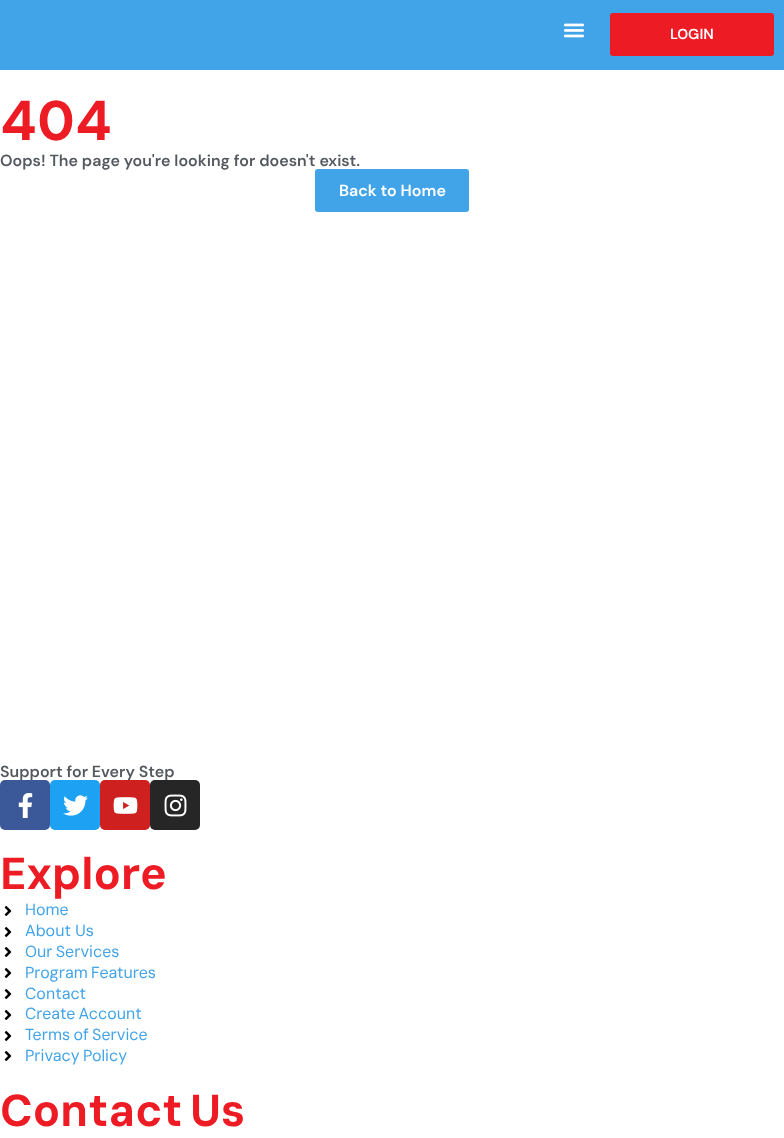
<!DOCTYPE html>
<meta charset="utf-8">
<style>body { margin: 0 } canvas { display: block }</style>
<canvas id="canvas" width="784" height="1138"></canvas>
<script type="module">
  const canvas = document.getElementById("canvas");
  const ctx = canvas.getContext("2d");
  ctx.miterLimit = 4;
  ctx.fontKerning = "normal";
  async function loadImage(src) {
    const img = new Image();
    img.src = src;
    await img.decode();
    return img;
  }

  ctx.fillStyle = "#ffffff";
  ctx.fillRect(0, 0, 784, 1138);
  ctx.fillStyle = "#42a4e8";
  ctx.fillRect(0, 0, 784, 70);
  ctx.drawImage(await loadImage("img1.png"), 563, 23, 22, 15);
  ctx.fillStyle = "#ed1c24";
  ctx.beginPath();
  ctx.roundRect(610, 13, 164, 43, 3);
  ctx.fill();
  ctx.font = "600 14.5px DM Sans";
  ctx.fillStyle = "#ffffff";
  ctx.fillText("LOGIN", 670, 39);
  ctx.font = "bold 56px DM Sans";
  ctx.fillStyle = "#ed1c24";
  ctx.fillText("404", 0, 140);
  ctx.font = "600 16px 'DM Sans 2'";
  ctx.fillStyle = "#54595f";
  ctx.fillText("Oops! The page you're looking for doesn't exist.", 0, 166);
  ctx.fillStyle = "#42a4e8";
  ctx.beginPath();
  ctx.roundRect(315, 169, 154, 43, 3);
  ctx.fill();
  ctx.fillStyle = "#ffffff";
  ctx.fillText("Back to Home", 339, 196);
  ctx.fillStyle = "#54595f";
  ctx.fillText("Support for Every Step", 0, 777);
  ctx.fillStyle = "#3b5998";
  ctx.beginPath();
  ctx.roundRect(0, 780, 50, 50, 5);
  ctx.fill();
  ctx.drawImage(await loadImage("img2.png"), 18, 793, 15, 25);
  ctx.fillStyle = "#1da1f2";
  ctx.beginPath();
  ctx.roundRect(50, 780, 50, 50, 5);
  ctx.fill();
  ctx.drawImage(await loadImage("img3.png"), 63, 795, 25, 21);
  ctx.fillStyle = "#cd201f";
  ctx.beginPath();
  ctx.roundRect(100, 780, 50, 50, 5);
  ctx.fill();
  ctx.drawImage(await loadImage("img4.png"), 113, 797, 25, 17);
  ctx.fillStyle = "#262626";
  ctx.beginPath();
  ctx.roundRect(150, 780, 50, 50, 5);
  ctx.fill();
  ctx.drawImage(await loadImage("img5.png"), 164, 794, 23, 23);
  ctx.font = "bold 44.75px DM Sans";
  ctx.fillStyle = "#ed1c24";
  ctx.fillText("Explore", 0, 889);
  ctx.drawImage(await loadImage("img6.png"), 4, 906, 8, 10);
  ctx.font = "16px DM Sans";
  ctx.fillStyle = "#42a4e8";
  ctx.fillText("Home", 25, 915);
  ctx.drawImage(await loadImage("img6.png"), 4, 927, 8, 10);
  ctx.fillText("About Us", 25, 936);
  ctx.drawImage(await loadImage("img6.png"), 4, 947, 8, 10);
  ctx.wordSpacing = "-1px";
  ctx.fillText("Our Services", 25, 957);
  ctx.drawImage(await loadImage("img6.png"), 4, 968, 8, 10);
  ctx.fillText("Program Features", 25, 978);
  ctx.drawImage(await loadImage("img6.png"), 4, 989, 8, 10);
  ctx.wordSpacing = "0px";
  ctx.fillText("Contact", 25, 999);
  ctx.drawImage(await loadImage("img6.png"), 4, 1010, 8, 10);
  ctx.wordSpacing = "-1px";
  ctx.fillText("Create Account", 25, 1019);
  ctx.drawImage(await loadImage("img6.png"), 4, 1031, 8, 10);
  ctx.fillText("Terms of Service", 25, 1040);
  ctx.drawImage(await loadImage("img6.png"), 4, 1051, 8, 10);
  ctx.fillText("Privacy Policy", 25, 1061);
  ctx.wordSpacing = "-3px";
  ctx.font = "bold 44.75px DM Sans";
  ctx.fillStyle = "#ed1c24";
  ctx.fillText("Contact Us", 0, 1126);
</script>
